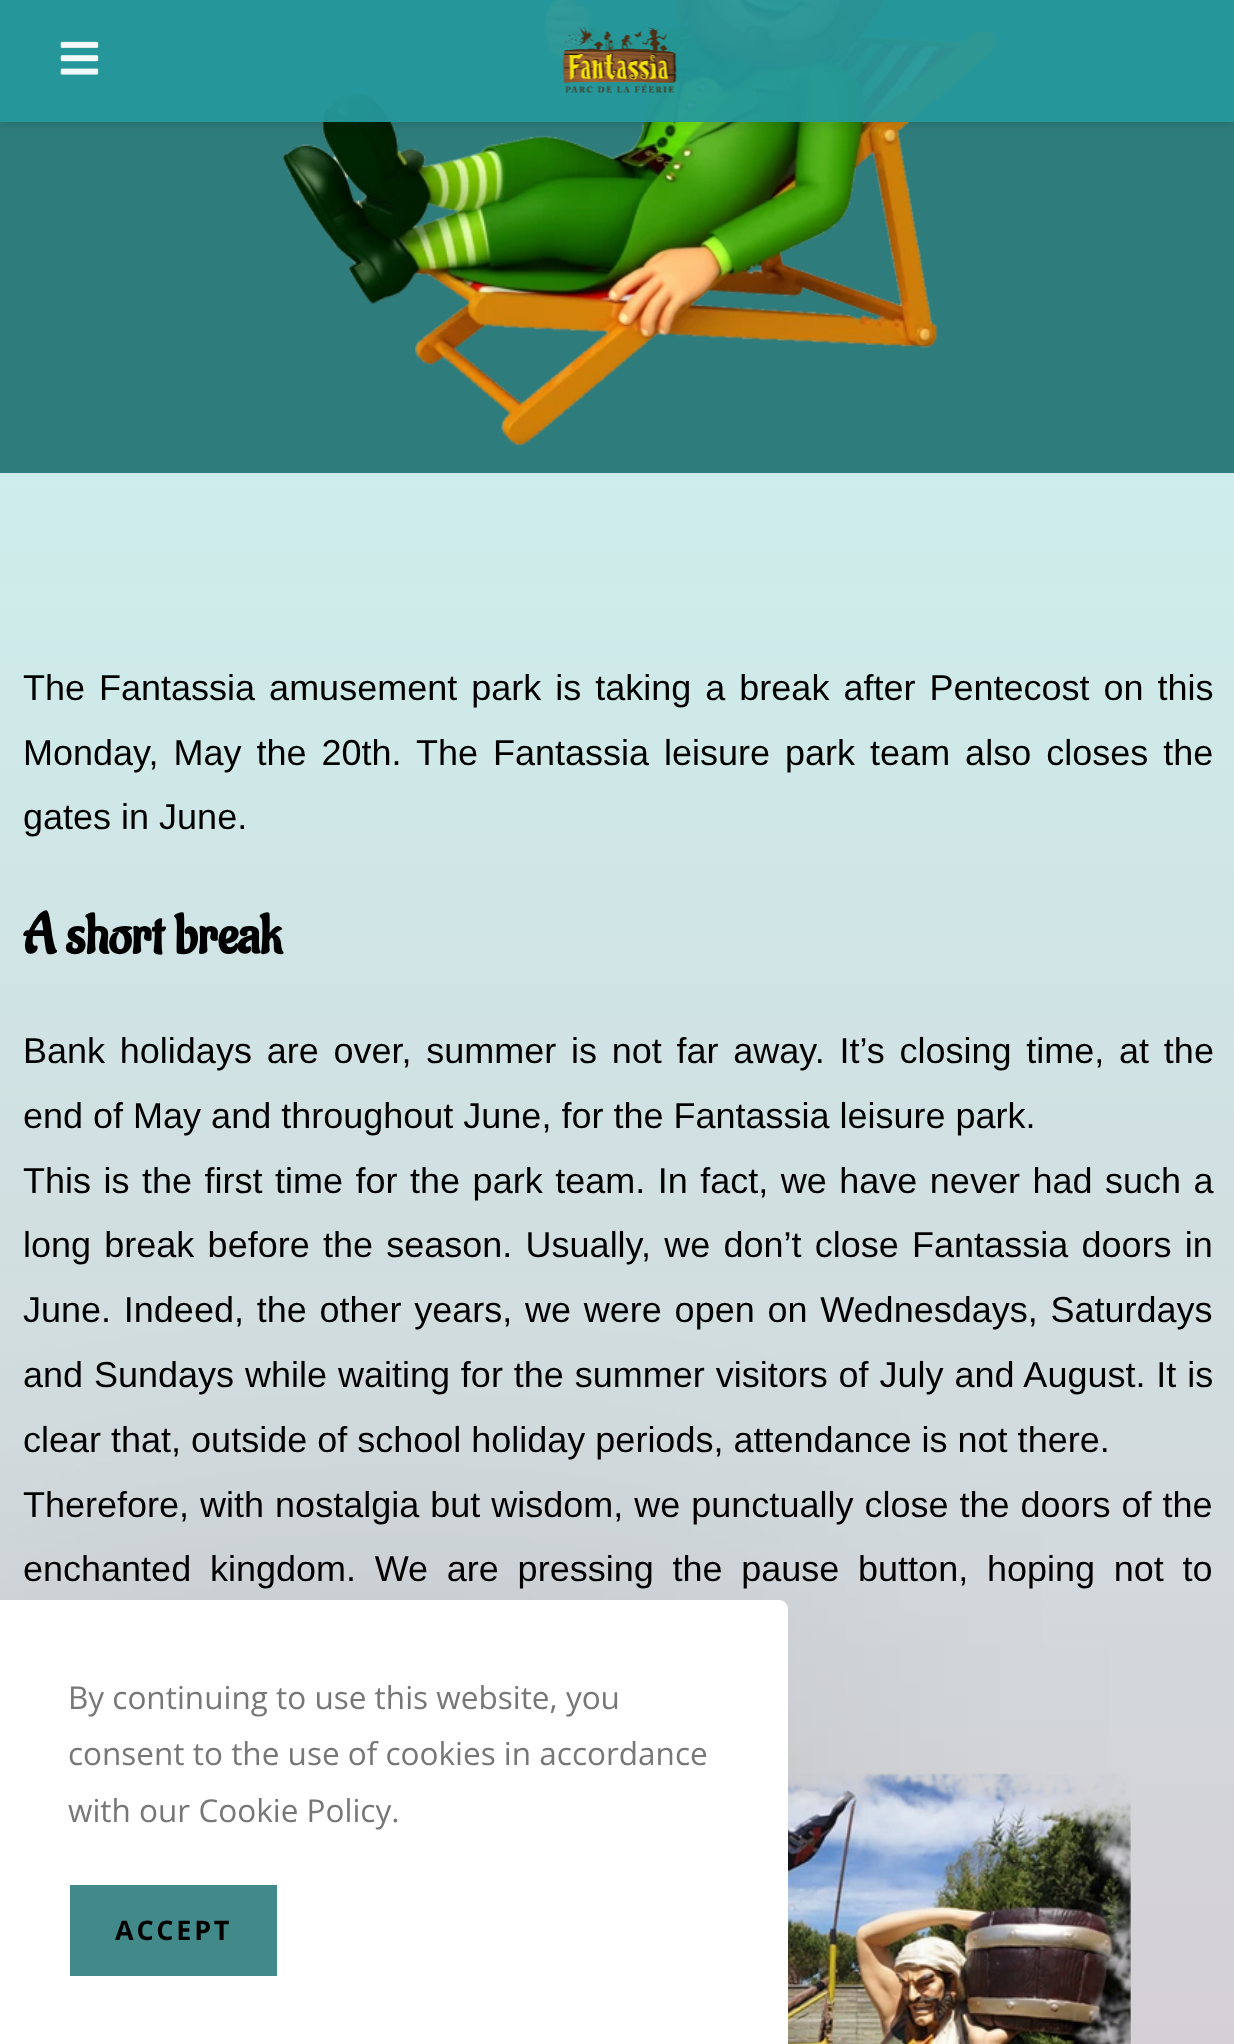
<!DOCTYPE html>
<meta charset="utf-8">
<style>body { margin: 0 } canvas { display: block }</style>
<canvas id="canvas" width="1234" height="2044"></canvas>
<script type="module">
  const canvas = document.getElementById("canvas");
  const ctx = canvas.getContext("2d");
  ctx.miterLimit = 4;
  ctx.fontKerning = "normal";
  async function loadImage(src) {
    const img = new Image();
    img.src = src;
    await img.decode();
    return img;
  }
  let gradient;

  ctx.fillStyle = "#2f7c7c";
  ctx.fillRect(0, 0, 1234, 2044);
  ctx.drawImage(await loadImage("img3.png"), 283, 0, 714, 446);
  ctx.save();
  ctx.beginPath();
  ctx.moveTo(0, 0);
  ctx.lineTo(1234, 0);
  ctx.lineTo(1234, 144);
  ctx.lineTo(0, 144);
  ctx.closePath();
  ctx.moveTo(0, 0);
  ctx.lineTo(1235, 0);
  ctx.lineTo(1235, 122);
  ctx.lineTo(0, 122);
  ctx.closePath();
  ctx.clip("evenodd");
  ctx.fillStyle = "rgba(0, 0, 0, 0.1)";
  ctx.filter = "blur(5.5px)";
  ctx.beginPath();
  ctx.rect(0, 5, 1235, 121);
  ctx.fill();
  ctx.filter = "none";
  ctx.restore();
  ctx.fillStyle = "rgba(37, 152, 155, 0.95)";
  ctx.fillRect(0, 0, 1234, 122);
  ctx.drawImage(await loadImage("img1.png"), 60, 41, 39, 34);
  ctx.drawImage(await loadImage("img2.png"), 562, 27, 115, 66);
  gradient = ctx.createLinearGradient(618, 473, 618, 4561);
  gradient.addColorStop(0, "#ceedec");
  gradient.addColorStop(1, "#dfa1b0");
  ctx.fillStyle = gradient;
  ctx.fillRect(0, 473, 1234, 1571);
  ctx.wordSpacing = "4px";
  ctx.font = "36px Liberation Sans";
  ctx.fillStyle = "#000000";
  ctx.fillText("The Fantassia amusement park is taking a break after Pentecost on this", 23, 700);
  ctx.wordSpacing = "5px";
  ctx.fillText("Monday, May the 20th. The Fantassia leisure park team also closes the", 23, 765);
  ctx.wordSpacing = "0px";
  ctx.fillText("gates in June.", 23, 829);
  ctx.font = "bold 56.25px Aladin";
  ctx.fillText("A short break", 23, 953);
  ctx.wordSpacing = "4.75px";
  ctx.font = "36px Liberation Sans";
  ctx.fillText("Bank holidays are over, summer is not far away. It’s closing time, at the", 23, 1063);
  ctx.wordSpacing = "0px";
  ctx.fillText("end of May and throughout June, for the Fantassia leisure park.", 23, 1128);
  ctx.wordSpacing = "2.5px";
  ctx.fillText("This is the first time for the park team. In fact, we have never had such a", 23, 1193);
  ctx.wordSpacing = "3.25px";
  ctx.fillText("long break before the season. Usually, we don’t close Fantassia doors in", 23, 1257);
  ctx.wordSpacing = "2.75px";
  ctx.fillText("June. Indeed, the other years, we were open on Wednesdays, Saturdays", 23, 1322);
  ctx.wordSpacing = "0.9px";
  ctx.fillText("and Sundays while waiting for the summer visitors of July and August. It is", 23, 1387);
  ctx.wordSpacing = "0px";
  ctx.fillText("clear that, outside of school holiday periods, attendance is not there.", 23, 1452);
  ctx.wordSpacing = "1px";
  ctx.fillText("Therefore, with nostalgia but wisdom, we punctually close the doors of the", 23, 1517);
  ctx.wordSpacing = "8.75px";
  ctx.fillText("enchanted kingdom. We are pressing the pause button, hoping not to", 23, 1581);
  ctx.drawImage(await loadImage("img4.png"), 788, 1773, 343, 271);
  ctx.fillStyle = "rgba(0, 0, 0, 0.1)";
  ctx.filter = "blur(169px)";
  ctx.beginPath();
  ctx.roundRect(0, 1645, 788, 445, 9);
  ctx.fill();
  ctx.filter = "none";
  ctx.fillStyle = "#ffffff";
  ctx.beginPath();
  ctx.moveTo(0, 1600);
  ctx.lineTo(779, 1600);
  ctx.bezierCurveTo(784, 1600, 788, 1604, 788, 1609);
  ctx.lineTo(788, 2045);
  ctx.lineTo(0, 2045);
  ctx.closePath();
  ctx.fill();
  ctx.wordSpacing = "0px";
  ctx.font = "31.5px Open Sans";
  ctx.fillStyle = "#777777";
  ctx.fillText("By continuing to use this website, you", 68, 1709);
  ctx.fillText("consent to the use of cookies in accordance", 68, 1765);
  ctx.fillText("with our Cookie Policy.", 68, 1822);
  ctx.fillStyle = "#428989";
  ctx.fillRect(70, 1885, 207, 91);
  ctx.letterSpacing = "2.75px";
  ctx.font = "bold 27px Open Sans";
  ctx.fillStyle = "#000000";
  ctx.fillText("ACCEPT", 115, 1940);
</script>
